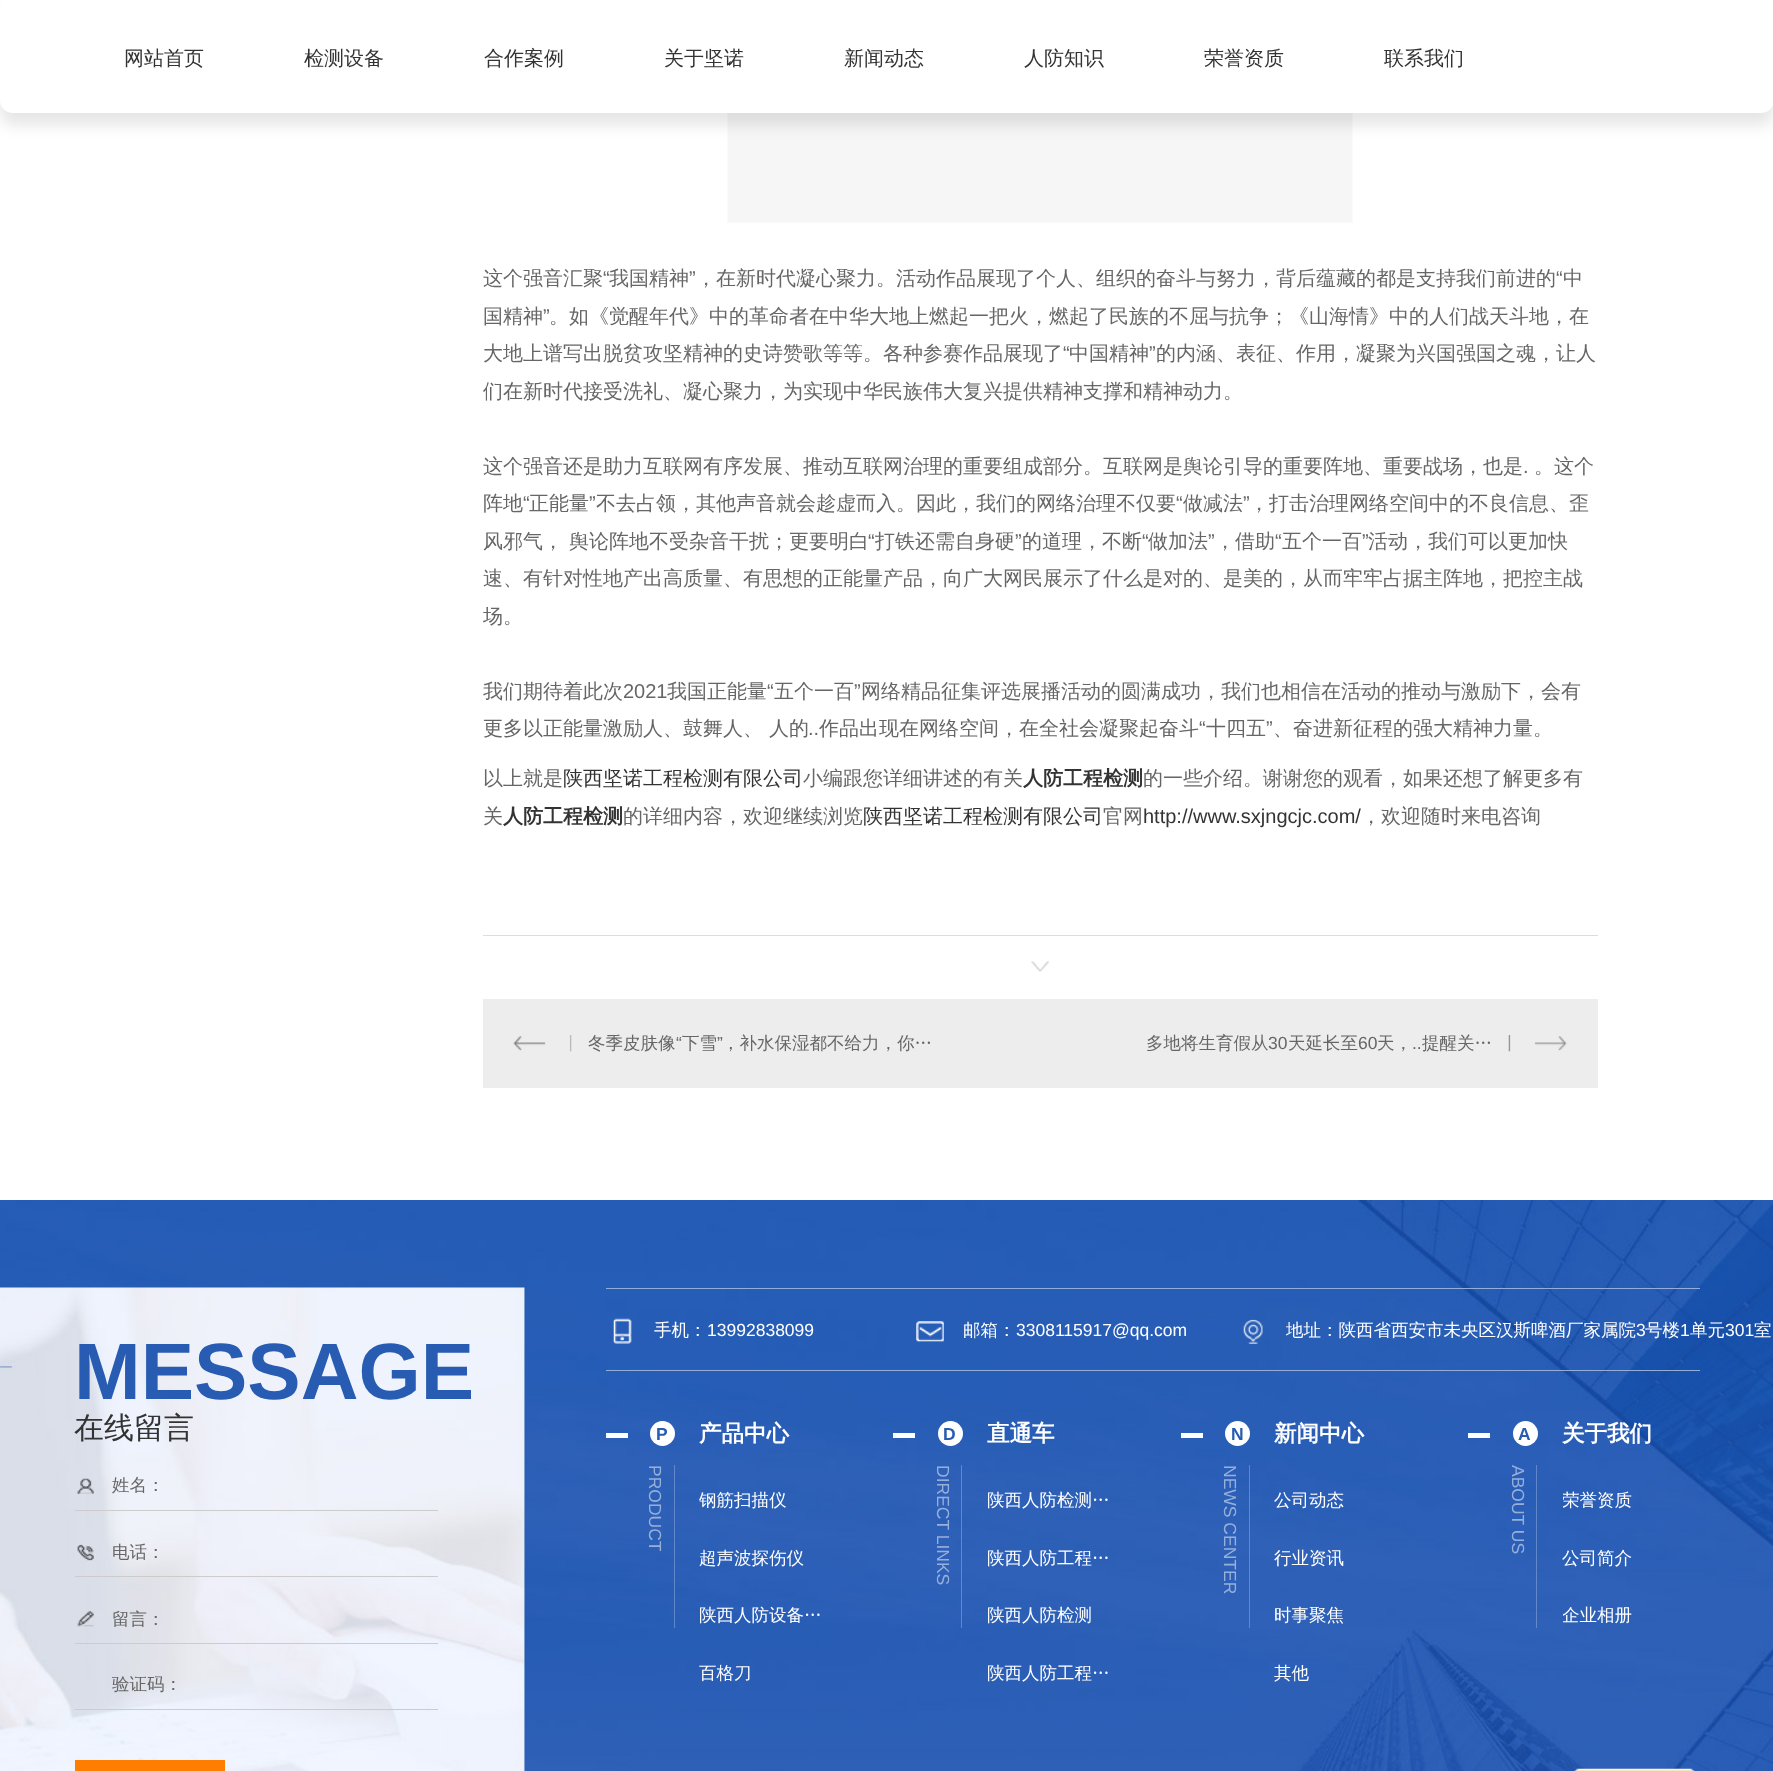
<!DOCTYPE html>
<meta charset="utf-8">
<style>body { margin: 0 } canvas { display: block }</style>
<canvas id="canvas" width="1773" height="1771"></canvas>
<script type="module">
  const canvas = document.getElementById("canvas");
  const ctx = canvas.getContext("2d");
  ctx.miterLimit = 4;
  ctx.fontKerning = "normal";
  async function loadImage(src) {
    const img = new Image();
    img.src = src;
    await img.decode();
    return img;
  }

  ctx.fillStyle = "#ffffff";
  ctx.fillRect(0, 0, 1773, 1771);
  ctx.drawImage(await loadImage("img1.png"), 727, 113, 626, 110);
  ctx.fillStyle = "rgba(0, 0, 0, 0.1)";
  ctx.filter = "blur(7.5px)";
  ctx.beginPath();
  ctx.roundRect(0, 13, 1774, 112, 13);
  ctx.fill();
  ctx.filter = "none";
  ctx.fillStyle = "#ffffff";
  ctx.beginPath();
  ctx.roundRect(0, 0, 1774, 113, 13);
  ctx.fill();
  ctx.font = "500 20px WenQuanYi Zen Hei";
  ctx.fillStyle = "#333333";
  ctx.fillText("网站首页", 124, 65);
  ctx.fillText("检测设备", 304, 65);
  ctx.fillText("合作案例", 484, 65);
  ctx.fillText("关于坚诺", 664, 65);
  ctx.fillText("新闻动态", 844, 65);
  ctx.fillText("人防知识", 1024, 65);
  ctx.fillText("荣誉资质", 1204, 65);
  ctx.fillText("联系我们", 1384, 65);
  ctx.fillStyle = "#dddddd";
  ctx.fillRect(483, 935, 1115, 1);
  ctx.fillStyle = "#666666";
  ctx.fillText("这个强音汇聚", 483, 285);
  ctx.font = "20px Liberation Sans";
  ctx.fillText("“", 603, 285);
  ctx.font = "500 20px WenQuanYi Zen Hei";
  ctx.fillText("我国精神", 609, 285);
  ctx.font = "20px Liberation Sans";
  ctx.fillText("”", 689, 285);
  ctx.font = "500 20px WenQuanYi Zen Hei";
  ctx.fillText("，在新时代凝心聚力。活动作品展现了个人、组织的奋斗与努力，背后蕴藏的都是支持我们前进的", 696, 285);
  ctx.font = "20px Liberation Sans";
  ctx.fillText("“", 1556, 285);
  ctx.font = "500 20px WenQuanYi Zen Hei";
  ctx.fillText("中", 1563, 285);
  ctx.fillText("国精神", 483, 323);
  ctx.font = "20px Liberation Sans";
  ctx.fillText("”", 543, 323);
  ctx.font = "500 20px WenQuanYi Zen Hei";
  ctx.fillText("。如《觉醒年代》中的革命者在中华大地上燃起一把火，燃起了民族的不屈与抗争；《山海情》中的人们战天斗地，在", 549, 323);
  ctx.fillText("大地上谱写出脱贫攻坚精神的史诗赞歌等等。各种参赛作品展现了", 483, 360);
  ctx.font = "20px Liberation Sans";
  ctx.fillText("“", 1063, 360);
  ctx.font = "500 20px WenQuanYi Zen Hei";
  ctx.fillText("中国精神", 1069, 360);
  ctx.font = "20px Liberation Sans";
  ctx.fillText("”", 1149, 360);
  ctx.font = "500 20px WenQuanYi Zen Hei";
  ctx.fillText("的内涵、表征、作用，凝聚为兴国强国之魂，让人", 1156, 360);
  ctx.fillText("们在新时代接受洗礼、凝心聚力，为实现中华民族伟大复兴提供精神支撑和精神动力。", 483, 398);
  ctx.fillText("这个强音还是助力互联网有序发展、推动互联网治理的重要组成部分。互联网是舆论引导的重要阵地、重要战场，也是", 483, 473);
  ctx.font = "20px Liberation Sans";
  ctx.fillText(".", 1523, 473);
  ctx.font = "500 20px WenQuanYi Zen Hei";
  ctx.fillText("。这个", 1534, 473);
  ctx.fillText("阵地", 483, 510);
  ctx.font = "20px Liberation Sans";
  ctx.fillText("“", 523, 510);
  ctx.font = "500 20px WenQuanYi Zen Hei";
  ctx.fillText("正能量", 529, 510);
  ctx.font = "20px Liberation Sans";
  ctx.fillText("”", 589, 510);
  ctx.font = "500 20px WenQuanYi Zen Hei";
  ctx.fillText("不去占领，其他声音就会趁虚而入。因此，我们的网络治理不仅要", 596, 510);
  ctx.font = "20px Liberation Sans";
  ctx.fillText("“", 1176, 510);
  ctx.font = "500 20px WenQuanYi Zen Hei";
  ctx.fillText("做减法", 1183, 510);
  ctx.font = "20px Liberation Sans";
  ctx.fillText("”", 1243, 510);
  ctx.font = "500 20px WenQuanYi Zen Hei";
  ctx.fillText("，打击治理网络空间中的不良信息、歪", 1249, 510);
  ctx.fillText("风邪气， 舆论阵地不受杂音干扰；更要明白", 483, 548);
  ctx.font = "20px Liberation Sans";
  ctx.fillText("“", 868, 548);
  ctx.font = "500 20px WenQuanYi Zen Hei";
  ctx.fillText("打铁还需自身硬", 875, 548);
  ctx.font = "20px Liberation Sans";
  ctx.fillText("”", 1015, 548);
  ctx.font = "500 20px WenQuanYi Zen Hei";
  ctx.fillText("的道理，不断", 1022, 548);
  ctx.font = "20px Liberation Sans";
  ctx.fillText("“", 1142, 548);
  ctx.font = "500 20px WenQuanYi Zen Hei";
  ctx.fillText("做加法", 1148, 548);
  ctx.font = "20px Liberation Sans";
  ctx.fillText("”", 1208, 548);
  ctx.font = "500 20px WenQuanYi Zen Hei";
  ctx.fillText("，借助", 1215, 548);
  ctx.font = "20px Liberation Sans";
  ctx.fillText("“", 1275, 548);
  ctx.font = "500 20px WenQuanYi Zen Hei";
  ctx.fillText("五个一百", 1282, 548);
  ctx.font = "20px Liberation Sans";
  ctx.fillText("”", 1362, 548);
  ctx.font = "500 20px WenQuanYi Zen Hei";
  ctx.fillText("活动，我们可以更加快", 1368, 548);
  ctx.fillText("速、有针对性地产出高质量、有思想的正能量产品，向广大网民展示了什么是对的、是美的，从而牢牢占据主阵地，把控主战", 483, 585);
  ctx.fillText("场。", 483, 623);
  ctx.fillText("我们期待着此次", 483, 698);
  ctx.font = "20px Liberation Sans";
  ctx.fillText("2021", 623, 698);
  ctx.font = "500 20px WenQuanYi Zen Hei";
  ctx.fillText("我国正能量", 667, 698);
  ctx.font = "20px Liberation Sans";
  ctx.fillText("“", 767, 698);
  ctx.font = "500 20px WenQuanYi Zen Hei";
  ctx.fillText("五个一百", 774, 698);
  ctx.font = "20px Liberation Sans";
  ctx.fillText("”", 854, 698);
  ctx.font = "500 20px WenQuanYi Zen Hei";
  ctx.fillText("网络精品征集评选展播活动的圆满成功，我们也相信在活动的推动与激励下，会有", 861, 698);
  ctx.fillText("更多以正能量激励人、鼓舞人、 人的", 483, 735);
  ctx.fillText("作品出现在网络空间，在全社会凝聚起奋斗", 819, 735);
  ctx.font = "20px Liberation Sans";
  ctx.fillText("“", 1199, 735);
  ctx.font = "500 20px WenQuanYi Zen Hei";
  ctx.fillText("十四五", 1206, 735);
  ctx.font = "20px Liberation Sans";
  ctx.fillText("”", 1266, 735);
  ctx.font = "500 20px WenQuanYi Zen Hei";
  ctx.fillText("、奋进新征程的强大精神力量。", 1273, 735);
  ctx.font = "20px Liberation Sans";
  ctx.fillText("..", 808, 735);
  ctx.font = "500 20px WenQuanYi Zen Hei";
  ctx.fillText("以上就是", 483, 785);
  ctx.fillStyle = "#333333";
  ctx.fillText("陕西坚诺工程检测有限公司", 563, 785);
  ctx.fillStyle = "#666666";
  ctx.fillText("小编跟您详细讲述的有关", 803, 785);
  ctx.font = "bold 20px WenQuanYi Zen Hei";
  ctx.fillStyle = "#333333";
  ctx.fillText("人防工程检测", 1023, 785);
  ctx.font = "500 20px WenQuanYi Zen Hei";
  ctx.fillStyle = "#666666";
  ctx.fillText("的一些介绍。谢谢您的观看，如果还想了解更多有", 1143, 785);
  ctx.fillText("关", 483, 823);
  ctx.font = "bold 20px WenQuanYi Zen Hei";
  ctx.fillStyle = "#333333";
  ctx.fillText("人防工程检测", 503, 823);
  ctx.font = "500 20px WenQuanYi Zen Hei";
  ctx.fillStyle = "#666666";
  ctx.fillText("的详细内容，欢迎继续浏览", 623, 823);
  ctx.fillStyle = "#333333";
  ctx.fillText("陕西坚诺工程检测有限公司", 863, 823);
  ctx.fillStyle = "#666666";
  ctx.fillText("官网", 1103, 823);
  ctx.font = "20px Liberation Sans";
  ctx.fillStyle = "#333333";
  ctx.fillText("http://www.sxjngcjc.com/", 1143, 823);
  ctx.font = "500 20px WenQuanYi Zen Hei";
  ctx.fillStyle = "#666666";
  ctx.fillText("，欢迎随时来电咨询", 1361, 823);
  ctx.drawImage(await loadImage("img2.png"), 1031, 961, 18, 11);
  ctx.fillStyle = "#ededed";
  ctx.fillRect(483, 999, 1115, 89);
  ctx.drawImage(await loadImage("img3.png"), 513, 1035, 59, 17);
  ctx.font = "500 17.5px WenQuanYi Zen Hei";
  ctx.fillStyle = "#666666";
  ctx.fillText("冬季皮肤像", 588, 1049);
  ctx.font = "17.5px Liberation Sans";
  ctx.fillText("“", 676, 1049);
  ctx.font = "500 17.5px WenQuanYi Zen Hei";
  ctx.fillText("下雪", 682, 1049);
  ctx.font = "17.5px Liberation Sans";
  ctx.fillText("”", 717, 1049);
  ctx.font = "500 17.5px WenQuanYi Zen Hei";
  ctx.fillText("，补水保湿都不给力，你…", 722, 1049);
  ctx.drawImage(await loadImage("img4.png"), 1508, 1035, 59, 17);
  ctx.fillText("多地将生育假从", 1146, 1049);
  ctx.font = "17.5px Liberation Sans";
  ctx.fillText("30", 1268, 1049);
  ctx.font = "500 17.5px WenQuanYi Zen Hei";
  ctx.fillText("天延长至", 1288, 1049);
  ctx.font = "17.5px Liberation Sans";
  ctx.fillText("60", 1358, 1049);
  ctx.font = "500 17.5px WenQuanYi Zen Hei";
  ctx.fillText("天，", 1377, 1049);
  ctx.font = "17.5px Liberation Sans";
  ctx.fillText("..", 1412, 1049);
  ctx.font = "500 17.5px WenQuanYi Zen Hei";
  ctx.fillText("提醒关…", 1422, 1049);
  ctx.drawImage(await loadImage("img5.png"), 0, 1200, 1773, 571);
  ctx.font = "bold 80px Liberation Sans";
  ctx.fillStyle = "#285cb2";
  ctx.fillText("MESSAGE", 74, 1399);
  ctx.font = "500 30px WenQuanYi Zen Hei";
  ctx.fillStyle = "#333333";
  ctx.fillText("在线留言", 74, 1438);
  ctx.fillStyle = "#cccccc";
  ctx.fillRect(75, 1510, 363, 1);
  ctx.drawImage(await loadImage("img6.png"), 77, 1478, 17, 16);
  ctx.font = "500 17.5px WenQuanYi Zen Hei";
  ctx.fillStyle = "#666666";
  ctx.fillText("姓名：", 112, 1491);
  ctx.fillStyle = "#cccccc";
  ctx.fillRect(75, 1576, 363, 1);
  ctx.drawImage(await loadImage("img7.png"), 77, 1544, 17, 17);
  ctx.fillStyle = "#666666";
  ctx.fillText("电话：", 112, 1558);
  ctx.fillStyle = "#cccccc";
  ctx.fillRect(75, 1643, 363, 1);
  ctx.drawImage(await loadImage("img8.png"), 77, 1611, 17, 16);
  ctx.fillStyle = "#666666";
  ctx.fillText("留言：", 112, 1625);
  ctx.fillStyle = "#cccccc";
  ctx.fillRect(75, 1709, 363, 1);
  ctx.fillStyle = "#666666";
  ctx.fillText("验证码：", 112, 1690);
  ctx.fillStyle = "#ff7e00";
  ctx.fillRect(75, 1760, 150, 11);
  ctx.fillStyle = "#92aeda";
  ctx.fillRect(606, 1288, 1094, 1);
  ctx.fillRect(606, 1370, 1094, 1);
  ctx.drawImage(await loadImage("img9.png"), 613, 1318, 19, 26);
  ctx.fillStyle = "#ffffff";
  ctx.fillText("手机：", 654, 1336);
  ctx.font = "17.5px Liberation Sans";
  ctx.fillText("13992838099", 707, 1336);
  ctx.drawImage(await loadImage("img10.png"), 916, 1321, 28, 21);
  ctx.font = "500 17.5px WenQuanYi Zen Hei";
  ctx.fillText("邮箱：", 963, 1336);
  ctx.font = "17.5px Liberation Sans";
  ctx.fillText("3308115917@qq.com", 1016, 1336);
  ctx.drawImage(await loadImage("img11.png"), 1243, 1319, 20, 25);
  ctx.font = "500 17.5px WenQuanYi Zen Hei";
  ctx.fillText("地址：陕西省西安市未央区汉斯啤酒厂家属院", 1286, 1336);
  ctx.font = "17.5px Liberation Sans";
  ctx.fillText("3", 1636, 1336);
  ctx.font = "500 17.5px WenQuanYi Zen Hei";
  ctx.fillText("号楼", 1645, 1336);
  ctx.font = "17.5px Liberation Sans";
  ctx.fillText("1", 1680, 1336);
  ctx.font = "500 17.5px WenQuanYi Zen Hei";
  ctx.fillText("单元", 1690, 1336);
  ctx.font = "17.5px Liberation Sans";
  ctx.fillText("301", 1725, 1336);
  ctx.font = "500 17.5px WenQuanYi Zen Hei";
  ctx.fillText("室", 1754, 1336);
  ctx.fillRect(606, 1433, 22, 5);
  ctx.beginPath();
  ctx.arc(662.5, 1433.5, 12.5, 0, Math.PI * 2);
  ctx.fill();
  ctx.font = "bold 17.5px Liberation Sans";
  ctx.fillStyle = "#285cb2";
  ctx.fillText("P", 656, 1440);
  ctx.fillStyle = "rgba(150, 176, 219, 0.5)";
  ctx.fillRect(674, 1465, 1, 163);
  ctx.font = "17.5px Liberation Sans";
  ctx.fillStyle = "#96afdb";
  ctx.save();
  ctx.translate(649, 1465);
  ctx.rotate(90 * Math.PI / 180);
  ctx.fillText("PRODUCT", 0, 0);
  ctx.restore();
  ctx.font = "bold 22.5px WenQuanYi Zen Hei";
  ctx.fillStyle = "#ffffff";
  ctx.fillText("产品中心", 699, 1441);
  ctx.font = "500 17.5px WenQuanYi Zen Hei";
  ctx.fillText("钢筋扫描仪", 699, 1506);
  ctx.fillText("超声波探伤仪", 699, 1564);
  ctx.fillText("陕西人防设备…", 699, 1621);
  ctx.fillText("百格刀", 699, 1679);
  ctx.fillRect(893, 1433, 22, 5);
  ctx.beginPath();
  ctx.arc(950.5, 1433.5, 12.5, 0, Math.PI * 2);
  ctx.fill();
  ctx.font = "bold 17.5px Liberation Sans";
  ctx.fillStyle = "#285cb2";
  ctx.fillText("D", 943, 1440);
  ctx.fillStyle = "rgba(150, 176, 219, 0.5)";
  ctx.fillRect(961, 1465, 1, 163);
  ctx.font = "17.5px Liberation Sans";
  ctx.fillStyle = "#96afdb";
  ctx.save();
  ctx.translate(937, 1465);
  ctx.rotate(90 * Math.PI / 180);
  ctx.fillText("DIRECT LINKS", 0, 0);
  ctx.restore();
  ctx.font = "bold 22.5px WenQuanYi Zen Hei";
  ctx.fillStyle = "#ffffff";
  ctx.fillText("直通车", 987, 1441);
  ctx.save();
  ctx.beginPath();
  ctx.rect(988, 1471, 131, 58);
  ctx.clip();
  ctx.font = "500 17.5px WenQuanYi Zen Hei";
  ctx.fillText("陕西人防检测…", 987, 1506);
  ctx.restore();
  ctx.save();
  ctx.beginPath();
  ctx.rect(988, 1529, 131, 57);
  ctx.clip();
  ctx.font = "500 17.5px WenQuanYi Zen Hei";
  ctx.fillText("陕西人防工程…", 987, 1564);
  ctx.restore();
  ctx.save();
  ctx.beginPath();
  ctx.rect(988, 1586, 131, 58);
  ctx.clip();
  ctx.font = "500 17.5px WenQuanYi Zen Hei";
  ctx.fillText("陕西人防检测", 987, 1621);
  ctx.restore();
  ctx.save();
  ctx.beginPath();
  ctx.rect(988, 1644, 131, 57);
  ctx.clip();
  ctx.font = "500 17.5px WenQuanYi Zen Hei";
  ctx.fillText("陕西人防工程…", 987, 1679);
  ctx.restore();
  ctx.fillRect(1181, 1433, 22, 5);
  ctx.beginPath();
  ctx.arc(1237.5, 1433.5, 12.5, 0, Math.PI * 2);
  ctx.fill();
  ctx.font = "bold 17.5px Liberation Sans";
  ctx.fillStyle = "#285cb2";
  ctx.fillText("N", 1231, 1440);
  ctx.fillStyle = "rgba(150, 176, 219, 0.5)";
  ctx.fillRect(1249, 1465, 1, 163);
  ctx.font = "17.5px Liberation Sans";
  ctx.fillStyle = "#96afdb";
  ctx.save();
  ctx.translate(1224, 1465);
  ctx.rotate(90 * Math.PI / 180);
  ctx.fillText("NEWS CENTER", 0, 0);
  ctx.restore();
  ctx.font = "bold 22.5px WenQuanYi Zen Hei";
  ctx.fillStyle = "#ffffff";
  ctx.fillText("新闻中心", 1274, 1441);
  ctx.font = "500 17.5px WenQuanYi Zen Hei";
  ctx.fillText("公司动态", 1274, 1506);
  ctx.fillText("行业资讯", 1274, 1564);
  ctx.fillText("时事聚焦", 1274, 1621);
  ctx.fillText("其他", 1274, 1679);
  ctx.fillRect(1468, 1433, 22, 5);
  ctx.beginPath();
  ctx.arc(1525.5, 1433.5, 12.5, 0, Math.PI * 2);
  ctx.fill();
  ctx.font = "bold 17.5px Liberation Sans";
  ctx.fillStyle = "#285cb2";
  ctx.fillText("A", 1518, 1440);
  ctx.fillStyle = "rgba(150, 176, 219, 0.5)";
  ctx.fillRect(1536, 1465, 1, 163);
  ctx.font = "17.5px Liberation Sans";
  ctx.fillStyle = "#96afdb";
  ctx.save();
  ctx.translate(1512, 1465);
  ctx.rotate(90 * Math.PI / 180);
  ctx.fillText("ABOUT US", 0, 0);
  ctx.restore();
  ctx.font = "bold 22.5px WenQuanYi Zen Hei";
  ctx.fillStyle = "#ffffff";
  ctx.fillText("关于我们", 1562, 1441);
  ctx.save();
  ctx.beginPath();
  ctx.rect(1563, 1471, 131, 58);
  ctx.clip();
  ctx.font = "500 17.5px WenQuanYi Zen Hei";
  ctx.fillText("荣誉资质", 1562, 1506);
  ctx.restore();
  ctx.font = "500 17.5px WenQuanYi Zen Hei";
  ctx.fillText("公司简介", 1562, 1564);
  ctx.save();
  ctx.beginPath();
  ctx.rect(1563, 1586, 131, 58);
  ctx.clip();
  ctx.fillText("企业相册", 1562, 1621);
  ctx.restore();
  ctx.drawImage(await loadImage("img12.png"), 1573, 1768, 122, 3);
</script>
